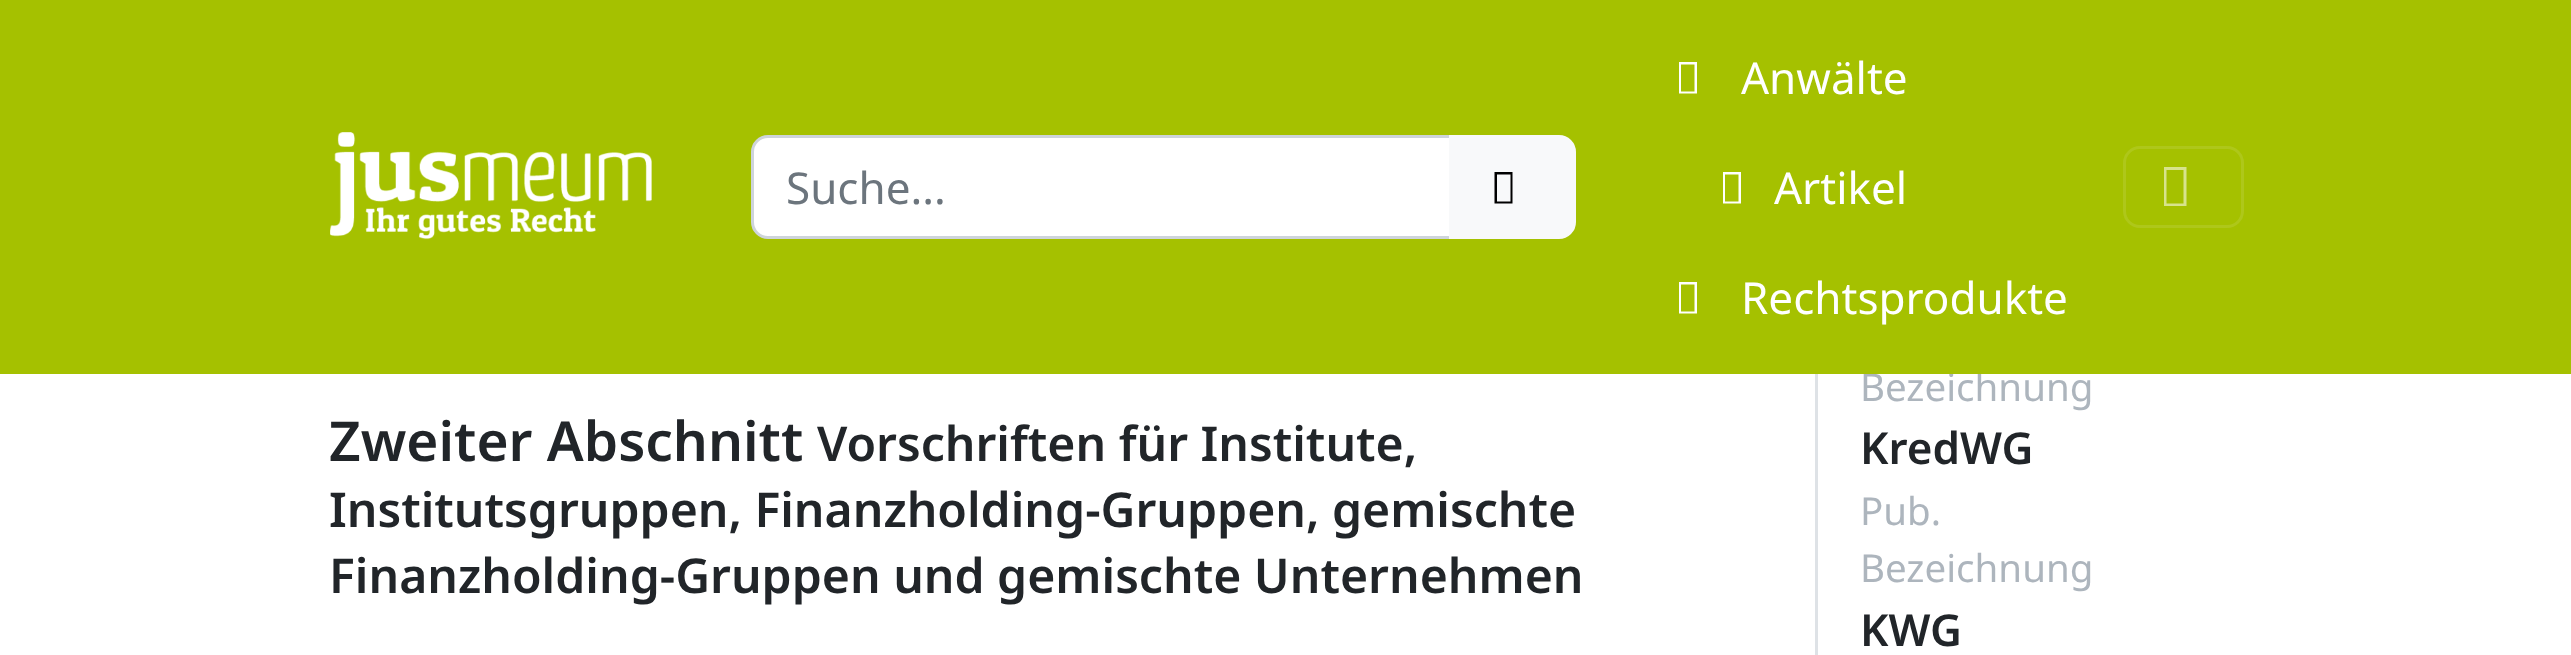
<!DOCTYPE html>
<meta charset="utf-8">
<style>body { margin: 0 } canvas { display: block }</style>
<canvas id="canvas" width="2571" height="655"></canvas>
<script type="module">
  const canvas = document.getElementById("canvas");
  const ctx = canvas.getContext("2d");
  ctx.miterLimit = 4;
  ctx.fontKerning = "normal";
  async function loadImage(src) {
    const img = new Image();
    img.src = src;
    await img.decode();
    return img;
  }

  ctx.fillStyle = "#ffffff";
  ctx.fillRect(0, 0, 2571, 655);
  ctx.font = "38.5px Noto Sans";
  ctx.fillStyle = "#adb5bd";
  ctx.fillText("Bezeichnung", 1860, 401);
  ctx.fillStyle = "#a5c100";
  ctx.fillRect(0, 0, 2571, 374);
  ctx.drawImage(await loadImage("img1.png"), 330, 132, 322, 108);
  ctx.fillStyle = "#ffffff";
  ctx.beginPath();
  ctx.roundRect(752.5, 136.5, 698, 101, [15.5, 0, 0, 15.5]);
  ctx.fill();
  ctx.strokeStyle = "#ced4da";
  ctx.lineWidth = 3;
  ctx.stroke();
  ctx.font = "44px Noto Sans";
  ctx.fillStyle = "#6c757d";
  ctx.fillText("Suche...", 786, 204);
  ctx.fillStyle = "#f8f9fa";
  ctx.beginPath();
  ctx.roundRect(1450.5, 136.5, 124, 101, [0, 15.5, 15.5, 0]);
  ctx.fill();
  ctx.strokeStyle = "#f8f9fa";
  ctx.stroke();
  ctx.fillStyle = "#000000";
  ctx.beginPath();
  ctx.moveTo(1494.5, 203.5);
  ctx.lineTo(1494.5, 172);
  ctx.lineTo(1512.5, 172);
  ctx.lineTo(1512.5, 203.5);
  ctx.closePath();
  ctx.moveTo(1497, 201.5);
  ctx.lineTo(1510.5, 201.5);
  ctx.lineTo(1510.5, 174.5);
  ctx.lineTo(1497, 174.5);
  ctx.closePath();
  ctx.fill();
  ctx.fillStyle = "#ffffff";
  ctx.beginPath();
  ctx.moveTo(1679, 93.5);
  ctx.lineTo(1679, 62);
  ctx.lineTo(1697, 62);
  ctx.lineTo(1697, 93.5);
  ctx.closePath();
  ctx.moveTo(1681, 91.5);
  ctx.lineTo(1694.5, 91.5);
  ctx.lineTo(1694.5, 64.5);
  ctx.lineTo(1681, 64.5);
  ctx.closePath();
  ctx.fill();
  ctx.fillText("Anwälte", 1741, 94);
  ctx.beginPath();
  ctx.moveTo(1723, 203.5);
  ctx.lineTo(1723, 172);
  ctx.lineTo(1741, 172);
  ctx.lineTo(1741, 203.5);
  ctx.closePath();
  ctx.moveTo(1725, 201.5);
  ctx.lineTo(1738.5, 201.5);
  ctx.lineTo(1738.5, 174.5);
  ctx.lineTo(1725, 174.5);
  ctx.closePath();
  ctx.fill();
  ctx.fillText("Artikel", 1774, 204);
  ctx.beginPath();
  ctx.moveTo(1679, 313.5);
  ctx.lineTo(1679, 282);
  ctx.lineTo(1697, 282);
  ctx.lineTo(1697, 313.5);
  ctx.closePath();
  ctx.moveTo(1681, 311.5);
  ctx.lineTo(1694.5, 311.5);
  ctx.lineTo(1694.5, 284.5);
  ctx.lineTo(1681, 284.5);
  ctx.closePath();
  ctx.fill();
  ctx.fillText("Rechtsprodukte", 1741, 314);
  ctx.beginPath();
  ctx.roundRect(2124.5, 147.5, 118, 79, 15.5);
  ctx.strokeStyle = "#aec71a";
  ctx.stroke();
  ctx.fillStyle = "#d7e38c";
  ctx.beginPath();
  ctx.moveTo(2164, 206);
  ctx.lineTo(2164, 167);
  ctx.lineTo(2186.5, 167);
  ctx.lineTo(2186.5, 206);
  ctx.closePath();
  ctx.moveTo(2166.5, 203.5);
  ctx.lineTo(2183.5, 203.5);
  ctx.lineTo(2183.5, 170);
  ctx.lineTo(2166.5, 170);
  ctx.closePath();
  ctx.fill();
  ctx.font = "600 55px Noto Sans";
  ctx.fillStyle = "#212529";
  ctx.fillText("Zweiter Abschnitt", 329, 461);
  ctx.font = "600 48.1px Noto Sans";
  ctx.fillText("Vorschriften für Institute,", 817, 461);
  ctx.fillText("Institutsgruppen, Finanzholding-Gruppen, gemischte", 329, 527);
  ctx.fillText("Finanzholding-Gruppen und gemischte Unternehmen", 329, 593);
  ctx.fillStyle = "#dee2e6";
  ctx.fillRect(1815, 374, 3, 281);
  ctx.font = "600 44px Noto Sans";
  ctx.fillStyle = "#212529";
  ctx.fillText("KredWG", 1860, 464);
  ctx.font = "38.5px Noto Sans";
  ctx.fillStyle = "#adb5bd";
  ctx.fillText("Pub.", 1860, 525);
  ctx.fillText("Bezeichnung", 1860, 582);
  ctx.font = "600 44px Noto Sans";
  ctx.fillStyle = "#212529";
  ctx.fillText("KWG", 1860, 646);
</script>
